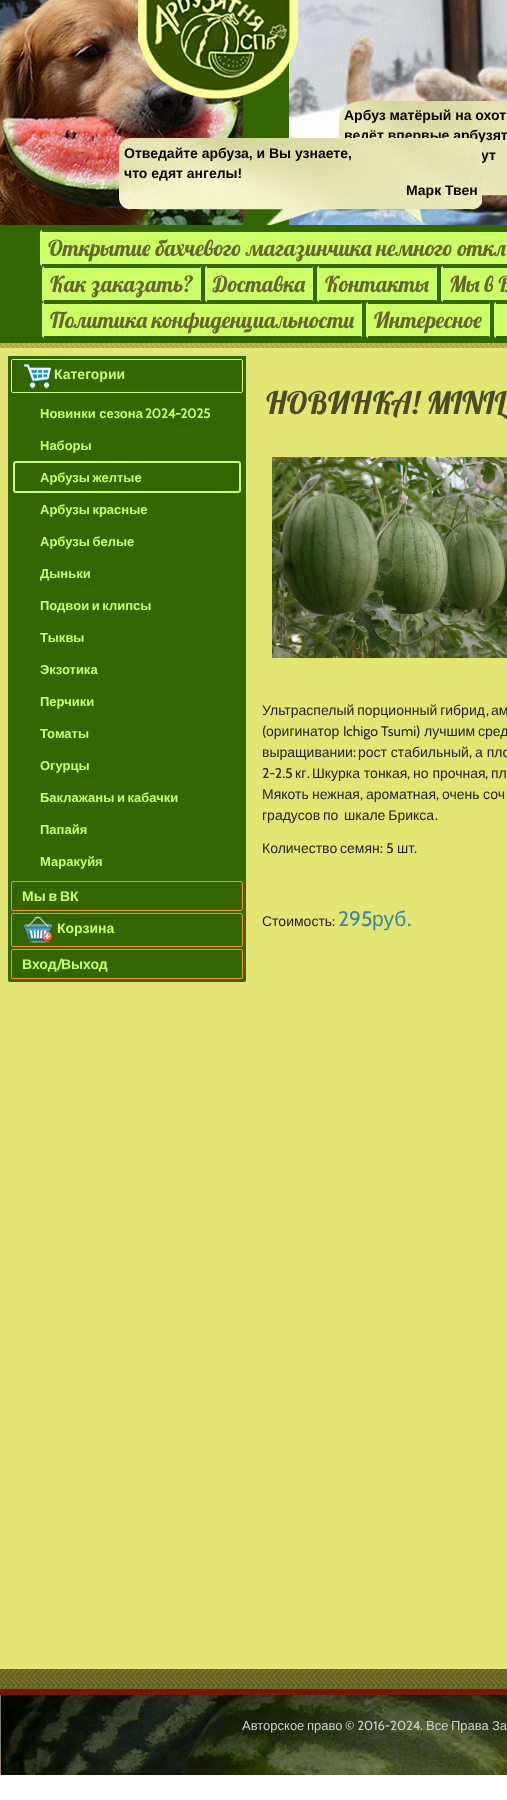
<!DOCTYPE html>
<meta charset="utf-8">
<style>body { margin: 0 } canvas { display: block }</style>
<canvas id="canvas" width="507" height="1800"></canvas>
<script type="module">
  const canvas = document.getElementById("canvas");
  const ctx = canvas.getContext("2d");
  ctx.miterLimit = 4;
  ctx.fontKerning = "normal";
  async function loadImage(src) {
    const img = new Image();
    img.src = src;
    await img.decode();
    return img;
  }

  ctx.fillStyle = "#ffffff";
  ctx.fillRect(0, 0, 507, 1800);
  ctx.drawImage(await loadImage("img1.png"), 0, 343, 507, 1346);
  ctx.drawImage(await loadImage("img3.png"), 0, 0, 289, 225);
  ctx.drawImage(await loadImage("img4.png"), 289, 0, 218, 225);
  ctx.drawImage(await loadImage("img2.png"), 138, 0, 160, 99);
  ctx.drawImage(await loadImage("img5.png"), 339, 101, 168, 123);
  ctx.font = "bold 14px Liberation Sans";
  ctx.fillStyle = "#000000";
  ctx.fillText("Арбуз матёрый на охот", 344, 120);
  ctx.fillText("ведёт впервые арбузят", 344, 140);
  ctx.fillText("ут", 481, 160);
  ctx.drawImage(await loadImage("img6.png"), 119, 138, 363, 87);
  ctx.fillText("Отведайте арбуза, и Вы узнаете,", 124, 158);
  ctx.fillText("что едят ангелы!", 124, 178);
  ctx.fillText("Марк Твен", 406, 195);
  ctx.fillStyle = "#336600";
  ctx.fillRect(0, 225, 507, 118);
  ctx.fillStyle = "#ccff66";
  ctx.beginPath();
  ctx.roundRect(40, 230, 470, 36, 3);
  ctx.fill();
  ctx.fillStyle = "#336600";
  ctx.fillRect(42, 230, 465, 2);
  ctx.fillRect(42, 264, 465, 2);
  ctx.font = "22px Lobster";
  ctx.fillStyle = "#666633";
  ctx.fillText("Открытие бахчевого магазинчика немного откл", 48, 256);
  ctx.fillStyle = "#ccff66";
  ctx.beginPath();
  ctx.roundRect(42, 266, 159, 36, 3);
  ctx.fill();
  ctx.fillStyle = "#336600";
  ctx.fillRect(44, 266, 156, 2);
  ctx.fillRect(44, 300, 156, 2);
  ctx.fillStyle = "#666633";
  ctx.fillText("Как заказать?", 50, 292);
  ctx.fillStyle = "#ccff66";
  ctx.beginPath();
  ctx.roundRect(205, 266, 108, 36, 3);
  ctx.fill();
  ctx.fillStyle = "#336600";
  ctx.fillRect(207, 266, 105, 2);
  ctx.fillRect(207, 300, 105, 2);
  ctx.fillStyle = "#666633";
  ctx.fillText("Доставка", 213, 292);
  ctx.fillStyle = "#ccff66";
  ctx.beginPath();
  ctx.roundRect(317, 266, 120, 36, 3);
  ctx.fill();
  ctx.fillStyle = "#336600";
  ctx.fillRect(319, 266, 117, 2);
  ctx.fillRect(319, 300, 117, 2);
  ctx.fillStyle = "#666633";
  ctx.fillText("Контакты", 325, 292);
  ctx.fillStyle = "#ccff66";
  ctx.beginPath();
  ctx.roundRect(441, 266, 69, 36, 3);
  ctx.fill();
  ctx.fillStyle = "#336600";
  ctx.fillRect(443, 266, 64, 2);
  ctx.fillRect(443, 300, 64, 2);
  ctx.fillStyle = "#666633";
  ctx.fillText("Мы в В", 449, 292);
  ctx.fillStyle = "#ccff66";
  ctx.beginPath();
  ctx.roundRect(42, 302, 320, 36, 3);
  ctx.fill();
  ctx.fillStyle = "#336600";
  ctx.fillRect(44, 302, 317, 2);
  ctx.fillRect(44, 336, 317, 2);
  ctx.fillStyle = "#666633";
  ctx.fillText("Политика конфиденциальности", 50, 328);
  ctx.fillStyle = "#ccff66";
  ctx.beginPath();
  ctx.roundRect(366, 302, 124, 36, 3);
  ctx.fill();
  ctx.fillStyle = "#336600";
  ctx.fillRect(368, 302, 121, 2);
  ctx.fillRect(368, 336, 121, 2);
  ctx.fillStyle = "#666633";
  ctx.fillText("Интересное", 374, 328);
  ctx.fillStyle = "#ccff66";
  ctx.beginPath();
  ctx.roundRect(494, 302, 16, 36, 3);
  ctx.fill();
  ctx.fillStyle = "#336600";
  ctx.fillRect(496, 302, 11, 2);
  ctx.fillRect(496, 336, 11, 2);
  ctx.fillStyle = "#e3e673";
  ctx.fillRect(0, 348, 507, 1321);
  ctx.fillStyle = "#336600";
  ctx.beginPath();
  ctx.roundRect(8, 356, 238, 626, [0, 0, 2, 2]);
  ctx.fill();
  ctx.beginPath();
  ctx.roundRect(11.5, 359.5, 231, 33, 1.5);
  ctx.strokeStyle = "#ccff66";
  ctx.stroke();
  ctx.drawImage(await loadImage("img7.png"), 22, 360, 32, 29);
  ctx.font = "bold 14px Liberation Sans";
  ctx.fillStyle = "#ccff66";
  ctx.fillText("Категории", 54, 379);
  ctx.font = "bold 13px Liberation Sans";
  ctx.fillText("Новинки сезона", 40, 418);
  ctx.font = "bold 13px Cabin";
  ctx.fillText("2024-2025", 145, 418);
  ctx.font = "bold 13px Liberation Sans";
  ctx.fillText("Наборы", 40, 450);
  ctx.beginPath();
  ctx.roundRect(14, 462, 226, 30, 2);
  ctx.lineWidth = 2;
  ctx.stroke();
  ctx.wordSpacing = "-1px";
  ctx.fillText("Арбузы желтые", 40, 482);
  ctx.fillText("Арбузы красные", 40, 514);
  ctx.fillText("Арбузы белые", 40, 546);
  ctx.wordSpacing = "0px";
  ctx.fillText("Дыньки", 40, 578);
  ctx.wordSpacing = "-1px";
  ctx.fillText("Подвои и клипсы", 40, 610);
  ctx.wordSpacing = "0px";
  ctx.fillText("Тыквы", 40, 642);
  ctx.fillText("Экзотика", 40, 674);
  ctx.fillText("Перчики", 40, 706);
  ctx.fillText("Томаты", 40, 738);
  ctx.fillText("Огурцы", 40, 770);
  ctx.wordSpacing = "-1px";
  ctx.fillText("Баклажаны и кабачки", 40, 802);
  ctx.wordSpacing = "0px";
  ctx.fillText("Папайя", 40, 834);
  ctx.fillText("Маракуйя", 40, 866);
  ctx.beginPath();
  ctx.roundRect(11.5, 881.5, 231, 29, 1.5);
  ctx.strokeStyle = "#ff9900";
  ctx.lineWidth = 1;
  ctx.stroke();
  ctx.wordSpacing = "-1px";
  ctx.font = "bold 14px Liberation Sans";
  ctx.fillText("Мы в ВК", 22, 901);
  ctx.beginPath();
  ctx.roundRect(11.5, 913.5, 231, 33, 1.5);
  ctx.stroke();
  ctx.drawImage(await loadImage("img8.png"), 24, 916, 29, 27);
  ctx.wordSpacing = "0px";
  ctx.fillText("Корзина", 57, 933);
  ctx.beginPath();
  ctx.roundRect(11.5, 949.5, 231, 29, 1.5);
  ctx.stroke();
  ctx.fillText("Вход", 22, 969);
  ctx.font = "bold 14px Cabin";
  ctx.fillText("/", 57, 969);
  ctx.font = "bold 14px Liberation Sans";
  ctx.fillText("Выход", 61, 969);
  ctx.font = "31px Lobster";
  ctx.fillStyle = "#4b4b26";
  ctx.fillText("НОВИНКА! MINIL", 266, 414);
  ctx.drawImage(await loadImage("img9.png"), 272, 457, 235, 201);
  ctx.wordSpacing = "-1px";
  ctx.font = "14px Liberation Sans";
  ctx.fillStyle = "#1f1f1f";
  ctx.fillText("Ультраспелый порционный гибрид", 262, 715);
  ctx.wordSpacing = "0px";
  ctx.font = "14px Cabin";
  ctx.fillText(",", 486, 715);
  ctx.wordSpacing = "-1px";
  ctx.font = "14px Liberation Sans";
  ctx.fillText("ам", 491, 715);
  ctx.wordSpacing = "0px";
  ctx.font = "14px Cabin";
  ctx.fillText("(", 262, 736);
  ctx.font = "14px Liberation Sans";
  ctx.fillText("оригинатор", 266, 736);
  ctx.font = "14px Cabin";
  ctx.fillText("Ichigo Tsumi)", 343, 736);
  ctx.font = "14px Liberation Sans";
  ctx.fillText("лучшим", 424, 736);
  ctx.fillText("сред", 478, 736);
  ctx.fillText("выращивании", 262, 757);
  ctx.font = "14px Cabin";
  ctx.fillText(":", 353, 757);
  ctx.font = "14px Liberation Sans";
  ctx.fillText("рост стабильный", 358, 757);
  ctx.font = "14px Cabin";
  ctx.fillText(",", 469, 757);
  ctx.font = "14px Liberation Sans";
  ctx.fillText("а пло", 475, 757);
  ctx.font = "14px Cabin";
  ctx.fillText("2-2.5", 262, 778);
  ctx.font = "14px Liberation Sans";
  ctx.fillText("кг", 295, 778);
  ctx.font = "14px Cabin";
  ctx.fillText(".", 307, 778);
  ctx.font = "14px Liberation Sans";
  ctx.fillText("Шкурка тонкая", 312, 778);
  ctx.font = "14px Cabin";
  ctx.fillText(",", 407, 778);
  ctx.font = "14px Liberation Sans";
  ctx.fillText("но прочная", 413, 778);
  ctx.font = "14px Cabin";
  ctx.fillText(",", 485, 778);
  ctx.font = "14px Liberation Sans";
  ctx.fillText("пл", 491, 778);
  ctx.fillText("Мякоть", 262, 799);
  ctx.fillText("нежная", 312, 799);
  ctx.font = "14px Cabin";
  ctx.fillText(",", 360, 799);
  ctx.font = "14px Liberation Sans";
  ctx.fillText("ароматная", 366, 799);
  ctx.font = "14px Cabin";
  ctx.fillText(",", 436, 799);
  ctx.font = "14px Liberation Sans";
  ctx.fillText("очень", 442, 799);
  ctx.fillText("соч", 483, 799);
  ctx.wordSpacing = "-1px";
  ctx.fillText("градусов по", 262, 820);
  ctx.fillText("шкале Брикса", 344, 820);
  ctx.wordSpacing = "0px";
  ctx.font = "14px Cabin";
  ctx.fillText(".", 435, 820);
  ctx.font = "14px Liberation Sans";
  ctx.fillText("Количество", 262, 853);
  ctx.fillText("семян", 340, 853);
  ctx.font = "14px Cabin";
  ctx.fillText(": 5", 380, 853);
  ctx.font = "14px Liberation Sans";
  ctx.fillText("шт", 397, 853);
  ctx.font = "14px Cabin";
  ctx.fillText(".", 414, 853);
  ctx.font = "14px Liberation Sans";
  ctx.fillText("Стоимость", 262, 926);
  ctx.font = "14px Cabin";
  ctx.fillText(":", 332, 926);
  ctx.font = "21px Cabin";
  ctx.fillStyle = "#3a87ad";
  ctx.fillText("295", 338, 926);
  ctx.font = "21px Liberation Sans";
  ctx.fillText("руб", 372, 926);
  ctx.font = "21px Cabin";
  ctx.fillText(".", 407, 926);
  ctx.drawImage(await loadImage("img10.png"), 0, 1695, 507, 80);
  ctx.fillStyle = "#7b1405";
  ctx.fillRect(0, 1689, 507, 6);
  ctx.font = "13px Liberation Sans";
  ctx.fillStyle = "#cfcfcf";
  ctx.fillText("Авторское", 242, 1730);
  ctx.fillText("право", 307, 1730);
  ctx.font = "13px Cabin";
  ctx.fillText("© 2016-2024.", 345, 1730);
  ctx.font = "13px Liberation Sans";
  ctx.fillText("Все", 426, 1730);
  ctx.fillText("Права", 451, 1730);
  ctx.fillText("За", 492, 1730);
</script>
